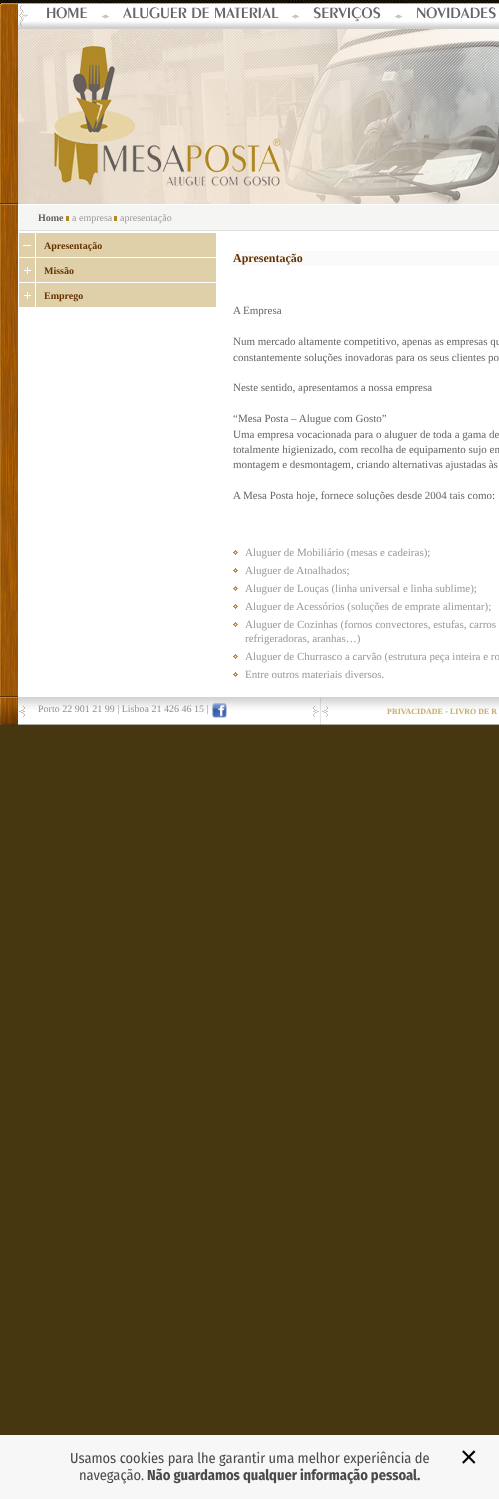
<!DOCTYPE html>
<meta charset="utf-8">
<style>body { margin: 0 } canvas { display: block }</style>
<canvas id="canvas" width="499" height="1499"></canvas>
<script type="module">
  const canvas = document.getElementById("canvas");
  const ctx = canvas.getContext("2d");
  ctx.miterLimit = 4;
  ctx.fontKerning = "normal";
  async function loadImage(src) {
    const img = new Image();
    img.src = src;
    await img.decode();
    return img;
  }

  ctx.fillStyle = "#463710";
  ctx.fillRect(0, 0, 499, 1499);
  ctx.drawImage(await loadImage("img1.png"), 0, 0, 499, 3);
  ctx.drawImage(await loadImage("img2.png"), 0, 3, 499, 26);
  ctx.font = "600 16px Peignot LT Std";
  ctx.fillStyle = "#666666";
  ctx.fillText("HOME", 46, 18);
  ctx.drawImage(await loadImage("img3.png"), 97, 2, 16, 17);
  ctx.fillText("ALUGUER DE MATERIAL", 123, 18);
  ctx.drawImage(await loadImage("img4.png"), 287, 1, 17, 18);
  ctx.fillText("SERVIÇOS", 313, 18);
  ctx.drawImage(await loadImage("img4.png"), 390, 1, 17, 18);
  ctx.fillText("NOVIDADES", 416, 18);
  ctx.drawImage(await loadImage("img5.png"), 0, 29, 499, 203);
  ctx.font = "bold 10px Liberation Serif";
  ctx.fillStyle = "#67605b";
  ctx.fillText("Home", 38, 221);
  ctx.fillStyle = "#b08927";
  ctx.fillRect(66, 216, 3, 5);
  ctx.font = "10px Liberation Serif";
  ctx.fillStyle = "#999999";
  ctx.fillText("a empresa", 72, 221);
  ctx.fillStyle = "#b08927";
  ctx.fillRect(114, 216, 3, 5);
  ctx.fillStyle = "#999999";
  ctx.fillText("apresentação", 120, 221);
  ctx.drawImage(await loadImage("img6.png"), 0, 232, 18, 464);
  ctx.fillStyle = "#ffffff";
  ctx.fillRect(18, 232, 481, 464);
  ctx.fillStyle = "#dfd0a9";
  ctx.fillRect(19, 233, 197, 24);
  ctx.drawImage(await loadImage("img7.png"), 23, 233, 13, 24);
  ctx.font = "bold 10px Liberation Serif";
  ctx.fillStyle = "#663300";
  ctx.fillText("Apresentação", 44, 249);
  ctx.fillStyle = "#dfd0a9";
  ctx.fillRect(19, 258, 197, 24);
  ctx.drawImage(await loadImage("img8.png"), 24, 258, 12, 24);
  ctx.fillStyle = "#663300";
  ctx.fillText("Missão", 44, 274);
  ctx.fillStyle = "#dfd0a9";
  ctx.fillRect(19, 283, 197, 24);
  ctx.drawImage(await loadImage("img8.png"), 24, 283, 12, 24);
  ctx.fillStyle = "#663300";
  ctx.fillText("Emprego", 44, 299);
  ctx.fillStyle = "#fafafa";
  ctx.fillRect(233, 251, 266, 15);
  ctx.font = "bold 12px Liberation Serif";
  ctx.fillStyle = "#663300";
  ctx.fillText("Apresentação", 233, 262);
  ctx.font = "11px Liberation Serif";
  ctx.fillStyle = "#666666";
  ctx.fillText("A Empresa", 233, 314);
  ctx.fillText("Num mercado altamente competitivo, apenas as empresas qu", 233, 345);
  ctx.fillText("constantemente soluções inovadoras para os seus clientes po", 233, 361);
  ctx.fillText("Neste sentido, apresentamos a nossa empresa", 233, 391);
  ctx.fillText("“Mesa Posta – Alugue com Gosto”", 233, 422);
  ctx.fillText("Uma empresa vocacionada para o aluguer de toda a gama de", 233, 438);
  ctx.fillText("totalmente higienizado, com recolha de equipamento sujo em", 233, 453);
  ctx.fillText("montagem e desmontagem, criando alternativas ajustadas às", 233, 468);
  ctx.fillText("A Mesa Posta hoje, fornece soluções desde 2004 tais como:", 233, 499);
  ctx.drawImage(await loadImage("img9.png"), 233, 550, 5, 5);
  ctx.fillStyle = "#999999";
  ctx.fillText("Aluguer de Mobiliário (mesas e cadeiras);", 245, 556);
  ctx.drawImage(await loadImage("img9.png"), 233, 568, 5, 5);
  ctx.fillText("Aluguer de Atoalhados;", 245, 574);
  ctx.drawImage(await loadImage("img9.png"), 233, 586, 5, 5);
  ctx.fillText("Aluguer de Louças (linha universal e linha sublime);", 245, 592);
  ctx.drawImage(await loadImage("img9.png"), 233, 604, 5, 5);
  ctx.fillText("Aluguer de Acessórios (soluções de emprate alimentar);", 245, 610);
  ctx.drawImage(await loadImage("img9.png"), 233, 622, 5, 5);
  ctx.fillText("Aluguer de Cozinhas (fornos convectores, estufas, carros", 245, 628);
  ctx.fillText("refrigeradoras, aranhas…)", 245, 642);
  ctx.drawImage(await loadImage("img9.png"), 233, 654, 5, 5);
  ctx.fillText("Aluguer de Churrasco a carvão (estrutura peça inteira e ro", 245, 660);
  ctx.drawImage(await loadImage("img9.png"), 233, 672, 5, 5);
  ctx.fillText("Entre outros materiais diversos.", 245, 678);
  ctx.drawImage(await loadImage("img10.png"), 0, 696, 499, 29);
  ctx.font = "10px Liberation Serif";
  ctx.fillStyle = "#909090";
  ctx.fillText("Porto 22 901 21 99 | Lisboa 21 426 46 15 |", 38, 712);
  ctx.drawImage(await loadImage("img11.png"), 212, 703, 15, 15);
  ctx.font = "bold 8px Liberation Serif";
  ctx.fillStyle = "#c8ac67";
  ctx.fillText("PRIVACIDADE", 387, 714);
  ctx.font = "bold 9px Liberation Serif";
  ctx.fillText("-", 445, 714);
  ctx.font = "bold 8px Liberation Serif";
  ctx.fillText("LIVRO DE R", 450, 714);
  ctx.fillStyle = "#f7f7f7";
  ctx.fillRect(0, 1435, 499, 64);
  ctx.font = "14.4px Fira Sans Condensed";
  ctx.fillStyle = "#4a4a4a";
  ctx.fillText("Usamos cookies para lhe garantir uma melhor experiência de", 70, 1463);
  ctx.fillText("navegação.", 79, 1480);
  ctx.font = "bold 14.4px Fira Sans Condensed";
  ctx.fillText("Não guardamos qualquer informação pessoal.", 147, 1480);
  ctx.font = "30px Liberation Sans";
  ctx.fillStyle = "#000000";
  ctx.fillText("×", 460, 1467);
</script>
